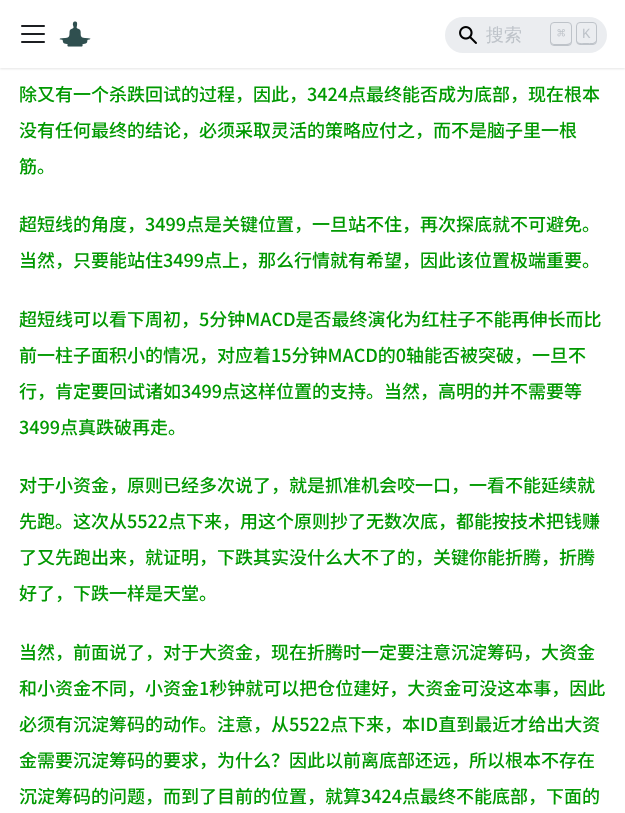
<!DOCTYPE html>
<meta charset="utf-8">
<style>body { margin: 0 } canvas { display: block }</style>
<canvas id="canvas" width="625" height="813"></canvas>
<script type="module">
  const canvas = document.getElementById("canvas");
  const ctx = canvas.getContext("2d");
  ctx.miterLimit = 4;
  ctx.fontKerning = "none";
  async function loadImage(src) {
    const img = new Image();
    img.src = src;
    await img.decode();
    return img;
  }

  ctx.fillStyle = "#ffffff";
  ctx.fillRect(0, 0, 625, 813);
  ctx.fillStyle = "rgba(0, 0, 0, 0.1)";
  ctx.filter = "blur(1px)";
  ctx.beginPath();
  ctx.rect(0, 1, 625, 68);
  ctx.fill();
  ctx.filter = "none";
  ctx.fillStyle = "#ffffff";
  ctx.fillRect(0, 0, 625, 68);
  ctx.drawImage(await loadImage("img1.png"), 21, 25, 24, 18);
  ctx.drawImage(await loadImage("img2.png"), 59, 21, 32, 26);
  ctx.fillStyle = "#ebedf0";
  ctx.beginPath();
  ctx.roundRect(445, 17, 162, 36, 18);
  ctx.fill();
  ctx.drawImage(await loadImage("img3.png"), 459, 26, 18, 18);
  ctx.font = "500 18px WenQuanYi Zen Hei";
  ctx.fillStyle = "#bec3c9";
  ctx.fillText("搜索", 486, 41);
  ctx.beginPath();
  ctx.moveTo(571, 41.5);
  ctx.bezierCurveTo(570.5, 43, 569, 44, 566, 44);
  ctx.lineTo(554, 44);
  ctx.bezierCurveTo(552.5, 44, 551.5, 43, 551, 41.5);
  ctx.bezierCurveTo(551, 45, 553, 45, 556, 45);
  ctx.lineTo(566, 45);
  ctx.bezierCurveTo(569, 45, 571, 45, 571, 41.5);
  ctx.closePath();
  ctx.fill();
  ctx.beginPath();
  ctx.roundRect(550.5, 22.5, 21, 23, 3.5);
  ctx.strokeStyle = "#bec3c9";
  ctx.stroke();
  ctx.font = "14px DejaVu Sans Mono";
  ctx.fillText("⌘", 557, 38);
  ctx.beginPath();
  ctx.moveTo(596, 40.5);
  ctx.bezierCurveTo(595, 44, 588, 43, 585.5, 43);
  ctx.bezierCurveTo(583, 43, 578, 44, 577, 41);
  ctx.bezierCurveTo(577, 44, 579, 44, 582, 44);
  ctx.lineTo(591, 44);
  ctx.bezierCurveTo(594.5, 44, 596, 44, 596, 40.5);
  ctx.closePath();
  ctx.fill();
  ctx.beginPath();
  ctx.roundRect(576.5, 22.5, 20, 22, 3.5);
  ctx.stroke();
  ctx.font = "14px Liberation Mono";
  ctx.fillText("K", 582, 38);
  ctx.font = "500 18px Noto Sans SC";
  ctx.fillStyle = "#009900";
  ctx.fillText("除又有一个杀跌回试的过程，因此，3424点最终能否成为底部，现在根本", 19, 101);
  ctx.fillText("没有任何最终的结论，必须采取灵活的策略应付之，而不是脑子里一根", 19, 137);
  ctx.fillText("筋。", 19, 173);
  ctx.fillText("超短线的角度，3499点是关键位置，一旦站不住，再次探底就不可避免。", 19, 231);
  ctx.fillText("当然，只要能站住3499点上，那么行情就有希望，因此该位置极端重要。", 19, 267);
  ctx.fillText("超短线可以看下周初，5分钟MACD是否最终演化为红柱子不能再伸长而比", 19, 326);
  ctx.fillText("前一柱子面积小的情况，对应着15分钟MACD的0轴能否被突破，一旦不", 19, 362);
  ctx.fillText("行，肯定要回试诸如3499点这样位置的支持。当然，高明的并不需要等", 19, 398);
  ctx.fillText("3499点真跌破再走。", 19, 434);
  ctx.fillText("对于小资金，原则已经多次说了，就是抓准机会咬一口，一看不能延续就", 19, 492);
  ctx.fillText("先跑。这次从5522点下来，用这个原则抄了无数次底，都能按技术把钱赚", 19, 528);
  ctx.fillText("了又先跑出来，就证明，下跌其实没什么大不了的，关键你能折腾，折腾", 19, 564);
  ctx.fillText("好了，下跌一样是天堂。", 19, 600);
  ctx.fillText("当然，前面说了，对于大资金，现在折腾时一定要注意沉淀筹码，大资金", 19, 659);
  ctx.fillText("和小资金不同，小资金1秒钟就可以把仓位建好，大资金可没这本事，因此", 19, 695);
  ctx.fillText("必须有沉淀筹码的动作。注意，从5522点下来，本ID直到最近才给出大资", 19, 731);
  ctx.fillText("金需要沉淀筹码的要求，为什么？因此以前离底部还远，所以根本不存在", 19, 767);
  ctx.fillText("沉淀筹码的问题，而到了目前的位置，就算3424点最终不能底部，下面的", 19, 803);
</script>
